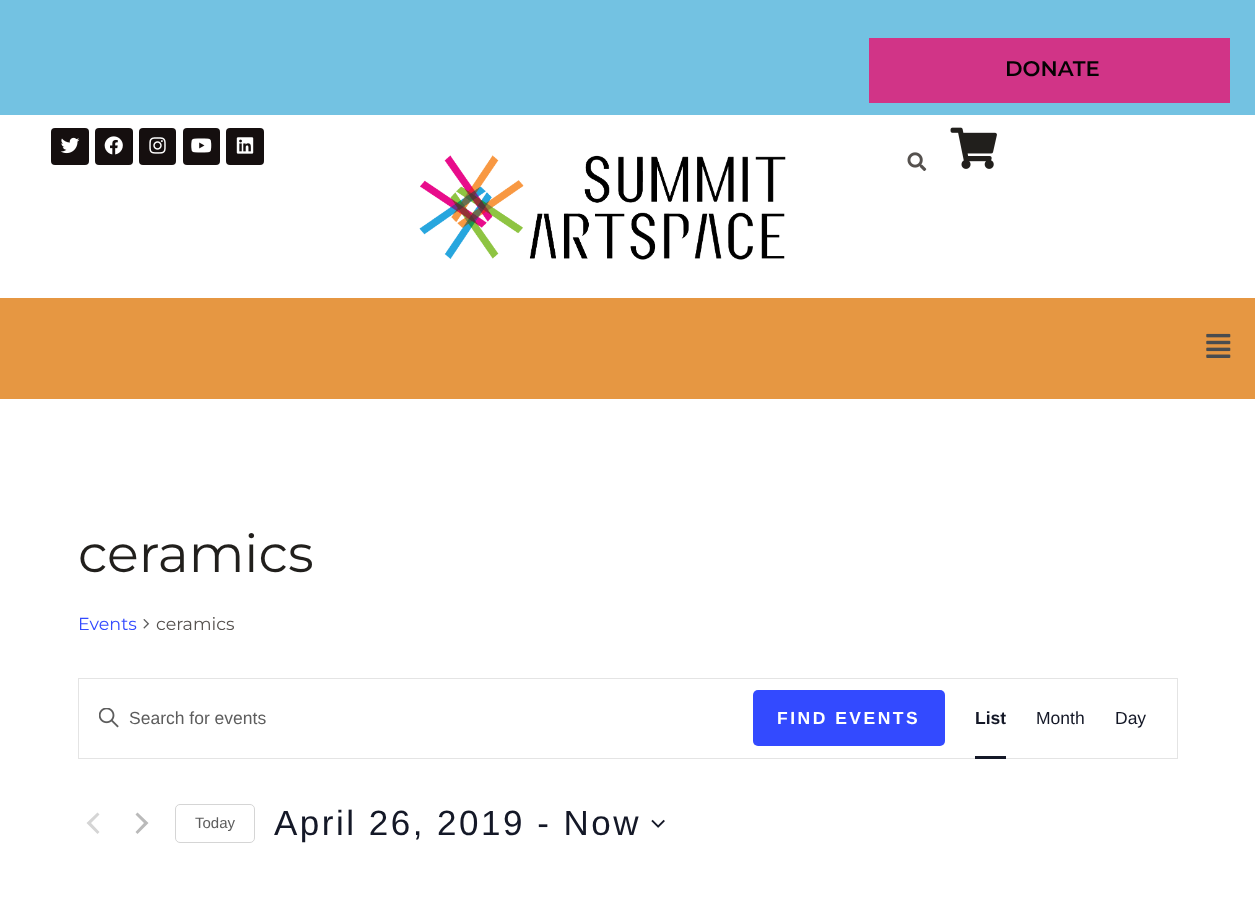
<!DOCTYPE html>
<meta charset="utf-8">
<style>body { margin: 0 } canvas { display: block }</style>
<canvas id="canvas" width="1255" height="904"></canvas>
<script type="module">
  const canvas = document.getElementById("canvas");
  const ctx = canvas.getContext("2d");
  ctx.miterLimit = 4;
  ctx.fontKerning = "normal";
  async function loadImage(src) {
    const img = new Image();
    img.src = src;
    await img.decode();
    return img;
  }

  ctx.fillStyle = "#ffffff";
  ctx.fillRect(0, 0, 1255, 904);
  ctx.fillStyle = "#73c2e2";
  ctx.fillRect(0, 0, 1255, 115);
  ctx.fillStyle = "#d13487";
  ctx.fillRect(869, 38, 361, 65);
  ctx.font = "600 21.25px Montserrat";
  ctx.fillStyle = "#050303";
  ctx.fillText("DONATE", 1005, 76);
  ctx.fillStyle = "#150f0f";
  ctx.beginPath();
  ctx.roundRect(51, 128, 38, 37, 4);
  ctx.fill();
  ctx.drawImage(await loadImage("img1.png"), 60, 137, 20, 17);
  ctx.beginPath();
  ctx.roundRect(95, 128, 38, 37, 4);
  ctx.fill();
  ctx.drawImage(await loadImage("img2.png"), 104, 136, 19, 19);
  ctx.beginPath();
  ctx.roundRect(139, 128, 37, 37, 4);
  ctx.fill();
  ctx.drawImage(await loadImage("img3.png"), 149, 137, 17, 17);
  ctx.beginPath();
  ctx.roundRect(183, 128, 37, 37, 4);
  ctx.fill();
  ctx.drawImage(await loadImage("img4.png"), 191, 138, 21, 15);
  ctx.beginPath();
  ctx.roundRect(226, 128, 38, 37, 4);
  ctx.fill();
  ctx.drawImage(await loadImage("img5.png"), 236, 137, 18, 17);
  ctx.drawImage(await loadImage("img6.png"), 419, 155, 367, 105);
  ctx.drawImage(await loadImage("img7.png"), 907, 152, 20, 19);
  ctx.drawImage(await loadImage("img8.png"), 950, 127, 47, 42);
  ctx.fillStyle = "#e69742";
  ctx.fillRect(0, 298, 1255, 101);
  ctx.drawImage(await loadImage("img9.png"), 1206, 333, 25, 25);
  ctx.font = "52.5px Montserrat";
  ctx.fillStyle = "#211f1c";
  ctx.fillText("ceramics", 78, 572);
  ctx.font = "17.5px Montserrat";
  ctx.fillStyle = "#334aff";
  ctx.fillText("Events", 78, 630);
  ctx.drawImage(await loadImage("img10.png"), 143, 619, 7, 10);
  ctx.fillStyle = "#55514e";
  ctx.fillText("ceramics", 156, 630);
  ctx.strokeStyle = "#e4e4e4";
  ctx.strokeRect(78.5, 678.5, 1099, 80);
  ctx.drawImage(await loadImage("img11.png"), 99, 708, 20, 20);
  ctx.font = "17.5px Liberation Sans";
  ctx.fillStyle = "#5d5d5d";
  ctx.fillText("Search for events", 129, 724);
  ctx.fillStyle = "#334aff";
  ctx.beginPath();
  ctx.roundRect(753, 690, 192, 56, 5);
  ctx.fill();
  ctx.letterSpacing = "2.5px";
  ctx.font = "bold 17.5px Liberation Sans";
  ctx.fillStyle = "#ffffff";
  ctx.fillText("FIND EVENTS", 777, 724);
  ctx.letterSpacing = "0px";
  ctx.fillStyle = "#141827";
  ctx.fillText("List", 975, 724);
  ctx.fillRect(975, 756, 31, 3);
  ctx.font = "17.5px Liberation Sans";
  ctx.fillText("Month", 1036, 724);
  ctx.fillText("Day", 1115, 724);
  ctx.fillStyle = "#d5d5d5";
  ctx.beginPath();
  ctx.moveTo(99.5, 832);
  ctx.lineTo(97.5, 834);
  ctx.lineTo(86.5, 823);
  ctx.lineTo(97.5, 812.5);
  ctx.lineTo(99.5, 814.5);
  ctx.lineTo(91, 823);
  ctx.closePath();
  ctx.fill();
  ctx.fillStyle = "#bababa";
  ctx.beginPath();
  ctx.moveTo(135.5, 814.5);
  ctx.lineTo(137.5, 812.5);
  ctx.lineTo(148.5, 823);
  ctx.lineTo(137.5, 834);
  ctx.lineTo(135.5, 832);
  ctx.lineTo(144, 823);
  ctx.closePath();
  ctx.fill();
  ctx.beginPath();
  ctx.roundRect(175.5, 804.5, 79, 38, 4.5);
  ctx.strokeStyle = "#d5d5d5";
  ctx.stroke();
  ctx.font = "15px Liberation Sans";
  ctx.fillStyle = "#5d5d5d";
  ctx.fillText("Today", 195, 828);
  ctx.letterSpacing = "2.5px";
  ctx.font = "35px Liberation Sans";
  ctx.fillStyle = "#141827";
  ctx.fillText("April 26, 2019 - Now", 274, 835);
  ctx.drawImage(await loadImage("img12.png"), 651, 819, 14, 9);
</script>
